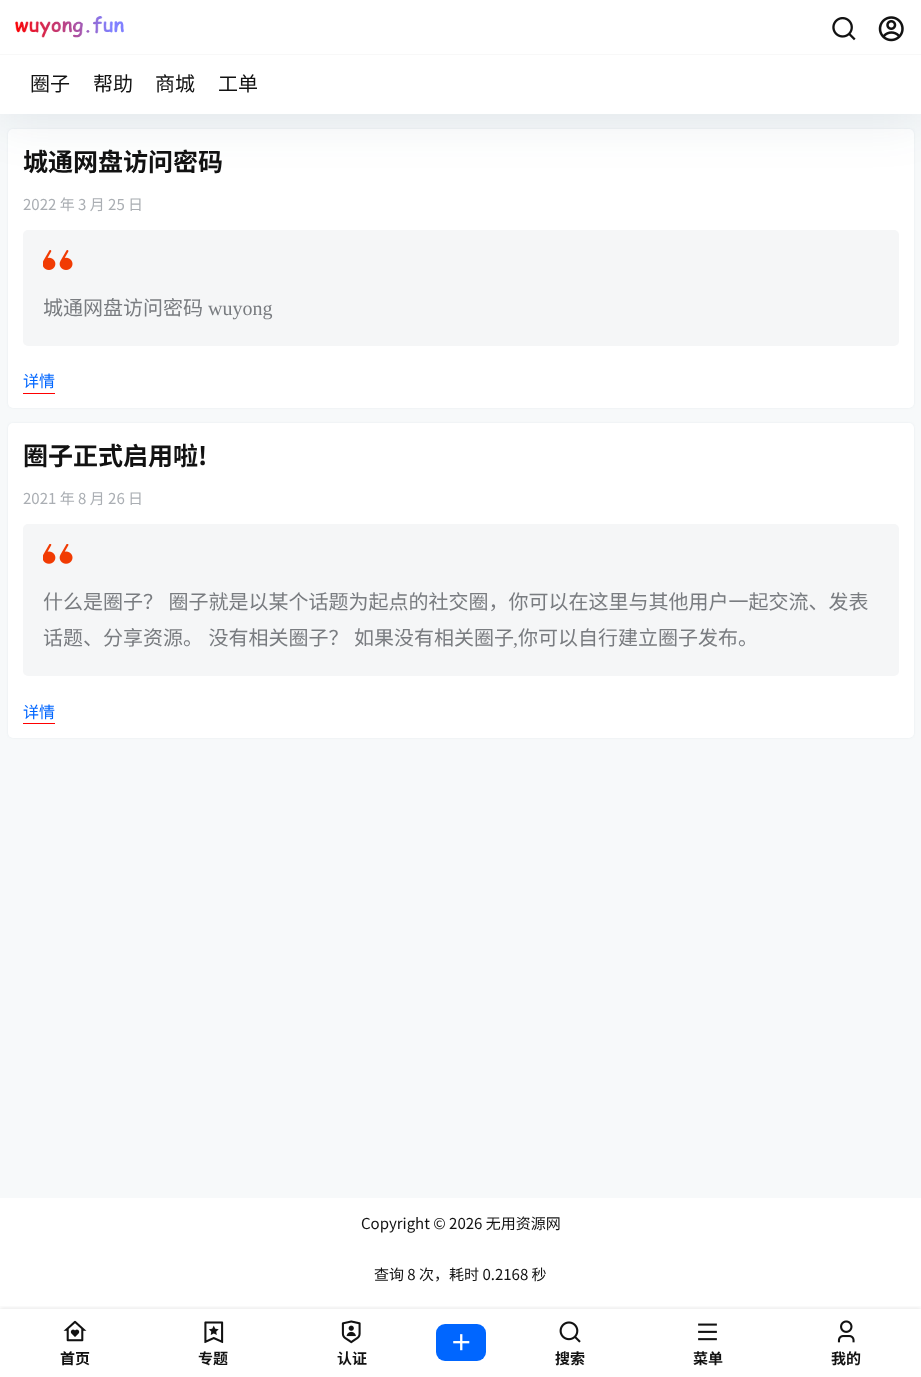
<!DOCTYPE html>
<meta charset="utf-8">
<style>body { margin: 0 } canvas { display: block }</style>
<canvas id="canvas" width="921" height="1377"></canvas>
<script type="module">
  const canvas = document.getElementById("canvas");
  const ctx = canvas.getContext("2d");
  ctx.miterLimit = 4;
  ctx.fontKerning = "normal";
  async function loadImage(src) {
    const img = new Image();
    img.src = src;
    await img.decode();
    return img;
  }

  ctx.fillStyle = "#f7f9fa";
  ctx.fillRect(0, 0, 921, 1377);
  ctx.fillStyle = "rgba(98, 124, 153, 0.1)";
  ctx.filter = "blur(1px)";
  ctx.beginPath();
  ctx.roundRect(8, 129, 906, 279, 5);
  ctx.fill();
  ctx.filter = "none";
  ctx.fillStyle = "#ffffff";
  ctx.beginPath();
  ctx.roundRect(8, 129, 906, 279, 5);
  ctx.fill();
  ctx.fillStyle = "rgba(17, 58, 93, 0.1)";
  ctx.filter = "blur(25px)";
  ctx.beginPath();
  ctx.rect(0, 6, 921, 114);
  ctx.fill();
  ctx.filter = "none";
  ctx.fillStyle = "#ffffff";
  ctx.fillRect(0, 0, 921, 114);
  ctx.drawImage(await loadImage("img1.png"), 832, 17, 24, 24);
  ctx.drawImage(await loadImage("img2.png"), 878, 16, 26, 26);
  ctx.fillStyle = "#f8f8f8";
  ctx.fillRect(0, 54, 921, 1);
  ctx.drawImage(await loadImage("img3.png"), 15, 16, 109, 22);
  ctx.font = "20px Noto Sans CJK SC";
  ctx.fillStyle = "#121212";
  ctx.fillText("圈子", 30, 91);
  ctx.fillText("帮助", 93, 91);
  ctx.fillText("商城", 155, 91);
  ctx.fillText("工单", 218, 91);
  ctx.font = "bold 25px Noto Sans CJK SC";
  ctx.fillText("城通网盘访问密码", 23, 171);
  ctx.font = "15px Noto Sans CJK SC";
  ctx.fillStyle = "#aaaeb3";
  ctx.fillText("2022 年 3 月 25 日", 23, 210);
  ctx.fillStyle = "#f5f6f7";
  ctx.beginPath();
  ctx.roundRect(23, 230, 876, 116, 5);
  ctx.fill();
  ctx.drawImage(await loadImage("img4.png"), 43, 250, 30, 20);
  ctx.font = "20px Noto Sans CJK SC";
  ctx.fillStyle = "#797c80";
  ctx.fillText("城通网盘访问密码", 43, 315);
  ctx.font = "20px Liberation Serif";
  ctx.fillText("wuyong", 208, 315);
  ctx.font = "16px Noto Sans CJK SC";
  ctx.fillStyle = "#0066ff";
  ctx.fillText("详情", 23, 387);
  ctx.fillStyle = "#ff0000";
  ctx.fillRect(23, 393, 32, 1);
  ctx.fillStyle = "rgba(98, 124, 153, 0.1)";
  ctx.filter = "blur(1px)";
  ctx.beginPath();
  ctx.roundRect(8, 423, 906, 315, 5);
  ctx.fill();
  ctx.filter = "none";
  ctx.fillStyle = "#ffffff";
  ctx.beginPath();
  ctx.roundRect(8, 423, 906, 315, 5);
  ctx.fill();
  ctx.font = "bold 25px Noto Sans CJK SC";
  ctx.fillStyle = "#121212";
  ctx.fillText("圈子正式启用啦!", 23, 465);
  ctx.font = "15px Noto Sans CJK SC";
  ctx.fillStyle = "#aaaeb3";
  ctx.fillText("2021 年 8 月 26 日", 23, 504);
  ctx.fillStyle = "#f5f6f7";
  ctx.beginPath();
  ctx.roundRect(23, 524, 876, 152, 5);
  ctx.fill();
  ctx.drawImage(await loadImage("img5.png"), 43, 544, 30, 20);
  ctx.wordSpacing = "1px";
  ctx.font = "20px Noto Sans CJK SC";
  ctx.fillStyle = "#797c80";
  ctx.fillText("什么是圈子？ 圈子就是以某个话题为起点的社交圈，你可以在这里与其他用户一起交流、发表", 43, 609);
  ctx.fillText("话题、分享资源。 没有相关圈子？ 如果没有相关圈子", 43, 645);
  ctx.wordSpacing = "0px";
  ctx.font = "20px Liberation Serif";
  ctx.fillText(",", 513, 645);
  ctx.font = "20px Noto Sans CJK SC";
  ctx.fillText("你可以自行建立圈子发布。", 518, 645);
  ctx.font = "16px Noto Sans CJK SC";
  ctx.fillStyle = "#0066ff";
  ctx.fillText("详情", 23, 718);
  ctx.fillStyle = "#ff0000";
  ctx.fillRect(23, 723, 32, 1);
  ctx.fillStyle = "#ffffff";
  ctx.fillRect(0, 1198, 921, 179);
  ctx.font = "15px Noto Sans CJK SC";
  ctx.fillStyle = "#121212";
  ctx.fillText("Copyright © 2026 无用资源网", 361, 1229);
  ctx.fillText("查询 8 次，耗时 0.2168 秒", 374, 1280);
  ctx.save();
  ctx.beginPath();
  ctx.rect(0, 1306, 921, 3);
  ctx.clip();
  ctx.fillStyle = "rgba(26, 26, 26, 0.1)";
  ctx.filter = "blur(2px)";
  ctx.beginPath();
  ctx.rect(0, 1308, 921, 68);
  ctx.fill();
  ctx.filter = "none";
  ctx.restore();
  ctx.drawImage(await loadImage("img6.png"), 63, 1320, 24, 22);
  ctx.font = "bold 15px Noto Sans CJK SC";
  ctx.fillText("首页", 60, 1364);
  ctx.drawImage(await loadImage("img7.png"), 204, 1321, 20, 23);
  ctx.fillText("专题", 198, 1364);
  ctx.drawImage(await loadImage("img8.png"), 341, 1320, 20, 24);
  ctx.fillText("认证", 337, 1364);
  ctx.fillStyle = "#0066ff";
  ctx.beginPath();
  ctx.roundRect(436, 1324, 50, 37, 9);
  ctx.fill();
  ctx.drawImage(await loadImage("img9.png"), 453, 1334, 17, 17);
  ctx.drawImage(await loadImage("img10.png"), 559, 1321, 22, 22);
  ctx.fillStyle = "#121212";
  ctx.fillText("搜索", 555, 1364);
  ctx.drawImage(await loadImage("img11.png"), 698, 1323, 19, 18);
  ctx.fillText("菜单", 693, 1364);
  ctx.drawImage(await loadImage("img12.png"), 837, 1320, 18, 23);
  ctx.fillText("我的", 831, 1364);
</script>
